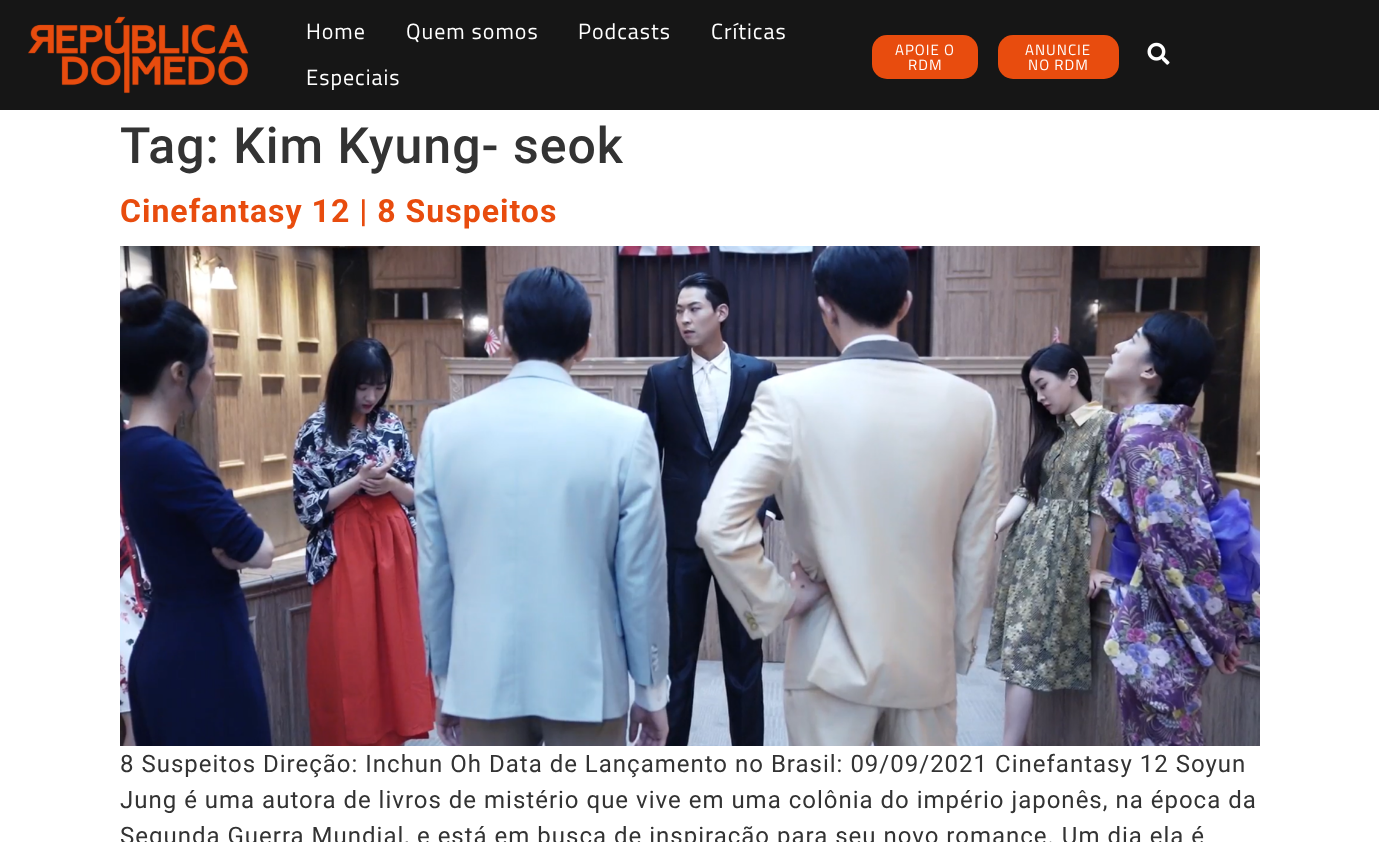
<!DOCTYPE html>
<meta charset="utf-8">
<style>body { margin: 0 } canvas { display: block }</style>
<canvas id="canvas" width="1379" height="842"></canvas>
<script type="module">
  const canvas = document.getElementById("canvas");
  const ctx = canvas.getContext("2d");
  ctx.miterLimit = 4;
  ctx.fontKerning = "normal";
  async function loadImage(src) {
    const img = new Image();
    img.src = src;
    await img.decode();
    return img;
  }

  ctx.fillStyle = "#ffffff";
  ctx.fillRect(0, 0, 1379, 842);
  ctx.fillStyle = "#161616";
  ctx.fillRect(0, 0, 1379, 110);
  ctx.drawImage(await loadImage("img1.png"), 28, 16, 221, 78);
  ctx.letterSpacing = "1px";
  ctx.font = "22px Titillium Web";
  ctx.fillStyle = "#ffffff";
  ctx.fillText("Home", 306, 39);
  ctx.fillText("Quem somos", 406, 39);
  ctx.fillText("Podcasts", 578, 39);
  ctx.fillText("Críticas", 711, 39);
  ctx.fillText("Especiais", 306, 85);
  ctx.fillStyle = "#e84c0e";
  ctx.beginPath();
  ctx.roundRect(872, 35, 106, 44, 15);
  ctx.fill();
  ctx.font = "15px Titillium Web";
  ctx.fillStyle = "#ffffff";
  ctx.fillText("APOIE O", 895, 55);
  ctx.fillText("RDM", 908, 70);
  ctx.fillStyle = "#e84c0e";
  ctx.beginPath();
  ctx.roundRect(998, 35, 121, 44, 15);
  ctx.fill();
  ctx.fillStyle = "#ffffff";
  ctx.fillText("ANUNCIE", 1025, 55);
  ctx.fillText("NO RDM", 1028, 70);
  ctx.drawImage(await loadImage("img2.png"), 1147, 42, 23, 23);
  ctx.font = "500 50px Roboto";
  ctx.fillStyle = "#333333";
  ctx.fillText("Tag: Kim Kyung- seok", 120, 163);
  ctx.font = "bold 32px Roboto";
  ctx.fillStyle = "#e84c0e";
  ctx.fillText("Cinefantasy 12 | 8 Suspeitos", 120, 222);
  ctx.drawImage(await loadImage("img3.png"), 120, 246, 1140, 500);
  ctx.font = "24px Roboto";
  ctx.fillStyle = "#333333";
  ctx.fillText("8 Suspeitos Direção: Inchun Oh Data de Lançamento no Brasil: 09/09/2021 Cinefantasy 12 Soyun", 120, 772);
  ctx.fillText("Jung é uma autora de livros de mistério que vive em uma colônia do império japonês, na época da", 120, 808);
  ctx.fillText("Segunda Guerra Mundial, e está em busca de inspiração para seu novo romance. Um dia ela é", 120, 844);
</script>
